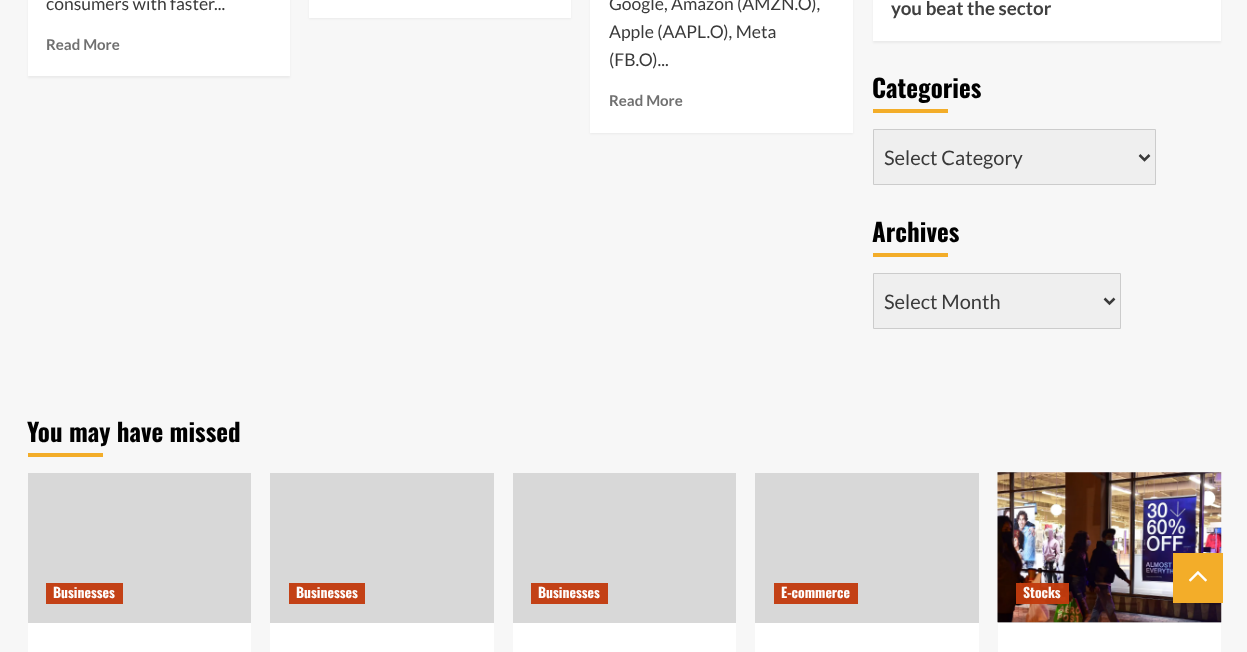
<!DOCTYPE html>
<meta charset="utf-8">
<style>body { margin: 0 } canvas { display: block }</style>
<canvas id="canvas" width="1247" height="652"></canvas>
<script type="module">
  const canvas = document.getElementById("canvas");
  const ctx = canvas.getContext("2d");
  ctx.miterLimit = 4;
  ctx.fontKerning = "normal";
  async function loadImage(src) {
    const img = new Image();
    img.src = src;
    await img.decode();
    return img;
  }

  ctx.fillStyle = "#f7f7f7";
  ctx.fillRect(0, 0, 1247, 652);
  ctx.fillStyle = "rgba(0, 0, 0, 0.05)";
  ctx.filter = "blur(1px)";
  ctx.beginPath();
  ctx.rect(28, -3, 262, 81);
  ctx.fill();
  ctx.filter = "none";
  ctx.fillStyle = "#ffffff";
  ctx.fillRect(28, 0, 262, 76);
  ctx.font = "17.5px Lato";
  ctx.fillStyle = "#3a3a3a";
  ctx.fillText("consumers with faster...", 46, 10);
  ctx.font = "bold 15px Lato";
  ctx.fillStyle = "#707070";
  ctx.fillText("Read More", 46, 50);
  ctx.fillStyle = "rgba(0, 0, 0, 0.05)";
  ctx.filter = "blur(1px)";
  ctx.beginPath();
  ctx.rect(309, -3, 262, 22);
  ctx.fill();
  ctx.filter = "none";
  ctx.fillStyle = "#ffffff";
  ctx.fillRect(309, 0, 262, 18);
  ctx.fillStyle = "rgba(0, 0, 0, 0.05)";
  ctx.filter = "blur(1px)";
  ctx.beginPath();
  ctx.rect(590, -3, 263, 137);
  ctx.fill();
  ctx.filter = "none";
  ctx.fillStyle = "#ffffff";
  ctx.fillRect(590, 0, 263, 133);
  ctx.font = "17.5px Lato";
  ctx.fillStyle = "#3a3a3a";
  ctx.fillText("Google, Amazon (AMZN.O),", 609, 10);
  ctx.fillText("Apple (AAPL.O), Meta", 609, 38);
  ctx.fillText("(FB.O)...", 609, 66);
  ctx.font = "bold 15px Lato";
  ctx.fillStyle = "#707070";
  ctx.fillText("Read More", 609, 106);
  ctx.fillStyle = "rgba(0, 0, 0, 0.05)";
  ctx.filter = "blur(1px)";
  ctx.beginPath();
  ctx.rect(873, -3, 348, 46);
  ctx.fill();
  ctx.filter = "none";
  ctx.fillStyle = "#ffffff";
  ctx.fillRect(873, 0, 348, 41);
  ctx.font = "bold 18.75px Lato";
  ctx.fillStyle = "#404040";
  ctx.fillText("you beat the sector", 891, 15);
  ctx.font = "bold 25px Oswald";
  ctx.fillStyle = "#000000";
  ctx.fillText("Categories", 872, 98);
  ctx.fillStyle = "#f3ad29";
  ctx.fillRect(873, 109, 75, 4);
  ctx.fillStyle = "#efefef";
  ctx.beginPath();
  ctx.rect(873.5, 129.5, 282, 55);
  ctx.fill();
  ctx.strokeStyle = "#cccccc";
  ctx.stroke();
  ctx.beginPath();
  ctx.moveTo(1139.5, 155);
  ctx.lineTo(1144.5, 160);
  ctx.lineTo(1149.5, 155);
  ctx.strokeStyle = "#3a3a3a";
  ctx.lineWidth = 2.5;
  ctx.stroke();
  ctx.font = "20px Lato";
  ctx.fillStyle = "#3a3a3a";
  ctx.fillText("Select Category", 884, 165);
  ctx.font = "bold 25px Oswald";
  ctx.fillStyle = "#000000";
  ctx.fillText("Archives", 872, 242);
  ctx.fillStyle = "#f3ad29";
  ctx.fillRect(873, 253, 75, 4);
  ctx.fillStyle = "#efefef";
  ctx.beginPath();
  ctx.rect(873.5, 273.5, 247, 55);
  ctx.fill();
  ctx.strokeStyle = "#cccccc";
  ctx.lineWidth = 1;
  ctx.stroke();
  ctx.beginPath();
  ctx.moveTo(1104.5, 298.5);
  ctx.lineTo(1109.5, 303.5);
  ctx.lineTo(1114.5, 298.5);
  ctx.strokeStyle = "#3a3a3a";
  ctx.lineWidth = 2.5;
  ctx.stroke();
  ctx.font = "20px Lato";
  ctx.fillStyle = "#3a3a3a";
  ctx.fillText("Select Month", 884, 309);
  ctx.font = "bold 25px Oswald";
  ctx.fillStyle = "#000000";
  ctx.fillText("You may have missed", 27, 442);
  ctx.fillStyle = "#f3ad29";
  ctx.fillRect(28, 453, 75, 4);
  ctx.fillStyle = "#ffffff";
  ctx.fillRect(28, 623, 223, 29);
  ctx.fillStyle = "#d8d8d8";
  ctx.fillRect(28, 473, 223, 150);
  ctx.fillStyle = "#c34116";
  ctx.fillRect(46, 583, 77, 21);
  ctx.font = "bold 13.75px Oswald";
  ctx.fillStyle = "#fdfdfd";
  ctx.fillText("Businesses", 53, 598);
  ctx.fillStyle = "#ffffff";
  ctx.fillRect(270, 623, 224, 29);
  ctx.fillStyle = "#d8d8d8";
  ctx.fillRect(270, 473, 224, 150);
  ctx.fillStyle = "#c34116";
  ctx.fillRect(289, 583, 76, 21);
  ctx.fillStyle = "#fdfdfd";
  ctx.fillText("Businesses", 296, 598);
  ctx.fillStyle = "#ffffff";
  ctx.fillRect(513, 623, 223, 29);
  ctx.fillStyle = "#d8d8d8";
  ctx.fillRect(513, 473, 223, 150);
  ctx.fillStyle = "#c34116";
  ctx.fillRect(531, 583, 77, 21);
  ctx.fillStyle = "#fdfdfd";
  ctx.fillText("Businesses", 538, 598);
  ctx.fillStyle = "#ffffff";
  ctx.fillRect(755, 623, 224, 29);
  ctx.fillStyle = "#d8d8d8";
  ctx.fillRect(755, 473, 224, 150);
  ctx.fillStyle = "#c34116";
  ctx.fillRect(774, 583, 84, 21);
  ctx.fillStyle = "#fdfdfd";
  ctx.fillText("E-commerce", 781, 598);
  ctx.fillStyle = "#ffffff";
  ctx.fillRect(998, 623, 223, 29);
  ctx.fillStyle = "#d8d8d8";
  ctx.fillRect(998, 622, 223, 1);
  ctx.drawImage(await loadImage("img1.png"), 997, 472, 225, 151);
  ctx.fillStyle = "rgba(194, 59, 14, 0.96)";
  ctx.fillRect(1016, 583, 53, 21);
  ctx.fillStyle = "#fcf7f5";
  ctx.fillText("Stocks", 1023, 598);
  ctx.fillStyle = "#f3ad29";
  ctx.fillRect(1173, 553, 50, 50);
  ctx.drawImage(await loadImage("img2.png"), 1188, 571, 19, 11);
</script>
